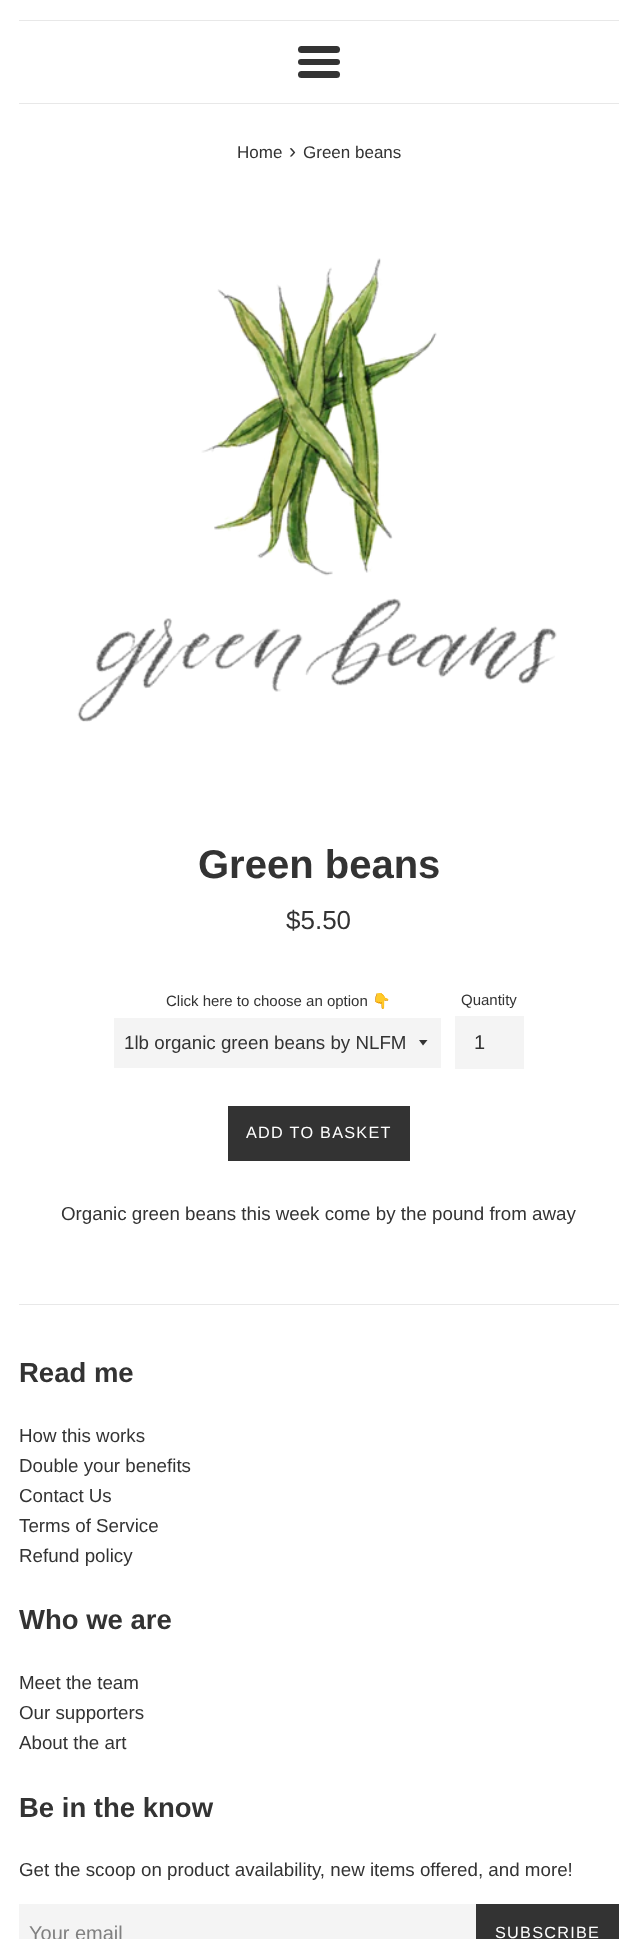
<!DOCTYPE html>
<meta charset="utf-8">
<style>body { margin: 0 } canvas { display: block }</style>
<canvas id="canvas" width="637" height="1939"></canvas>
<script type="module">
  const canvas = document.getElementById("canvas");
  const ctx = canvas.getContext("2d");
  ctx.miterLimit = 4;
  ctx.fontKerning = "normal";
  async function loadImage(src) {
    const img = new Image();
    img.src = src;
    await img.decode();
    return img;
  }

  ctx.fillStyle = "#ffffff";
  ctx.fillRect(0, 0, 637, 1939);
  ctx.fillStyle = "#e8e8e8";
  ctx.fillRect(19, 20, 600, 1);
  ctx.fillStyle = "#333333";
  ctx.beginPath();
  ctx.roundRect(298, 46, 42, 7, 3.5);
  ctx.fill();
  ctx.beginPath();
  ctx.roundRect(298, 59, 42, 6, 3);
  ctx.fill();
  ctx.beginPath();
  ctx.roundRect(298, 71, 42, 7, 3.5);
  ctx.fill();
  ctx.fillStyle = "#e8e8e8";
  ctx.fillRect(19, 103, 600, 1);
  ctx.font = "17px Arimo";
  ctx.fillStyle = "#333333";
  ctx.fillText("Home", 237, 158);
  ctx.font = "21px Arimo";
  ctx.fillText("›", 289, 158);
  ctx.font = "17px Arimo";
  ctx.fillText("Green beans", 303, 158);
  ctx.drawImage(await loadImage("img1.png"), 77, 258, 480, 464);
  ctx.font = "bold 40px Arimo";
  ctx.fillText("Green beans", 198, 878);
  ctx.font = "26px Arimo";
  ctx.fillText("$5.50", 286, 929);
  ctx.font = "15px Arimo";
  ctx.fillText("Click here to choose an option", 166, 1006);
  ctx.font = "15px Noto Color Emoji";
  ctx.fillText("👇", 372, 1006);
  ctx.fillStyle = "#f4f4f4";
  ctx.fillRect(114, 1018, 327, 50);
  ctx.fillStyle = "#333333";
  ctx.beginPath();
  ctx.moveTo(419, 1040);
  ctx.lineTo(423, 1045.5);
  ctx.lineTo(427.5, 1040);
  ctx.closePath();
  ctx.fill();
  ctx.font = "18.75px Arimo";
  ctx.fillText("1lb organic green beans by NLFM", 124, 1049);
  ctx.font = "15px Arimo";
  ctx.fillText("Quantity", 461, 1005);
  ctx.fillStyle = "#f4f4f4";
  ctx.fillRect(455, 1016, 69, 53);
  ctx.font = "20px Arimo";
  ctx.fillStyle = "#333333";
  ctx.fillText("1", 474, 1049);
  ctx.fillRect(228, 1106, 182, 55);
  ctx.letterSpacing = "1.25px";
  ctx.font = "16.25px Arimo";
  ctx.fillStyle = "#ffffff";
  ctx.fillText("ADD TO BASKET", 246, 1138);
  ctx.letterSpacing = "0px";
  ctx.font = "18.75px Arimo";
  ctx.fillStyle = "#333333";
  ctx.fillText("Organic green beans this week come by the pound from away", 61, 1220);
  ctx.fillStyle = "#e8e8e8";
  ctx.fillRect(19, 1304, 600, 1);
  ctx.font = "bold 27.5px Arimo";
  ctx.fillStyle = "#333333";
  ctx.fillText("Read me", 19, 1382);
  ctx.font = "18.75px Arimo";
  ctx.fillText("How this works", 19, 1442);
  ctx.fillText("Double your benefits", 19, 1472);
  ctx.fillText("Contact Us", 19, 1502);
  ctx.fillText("Terms of Service", 19, 1532);
  ctx.fillText("Refund policy", 19, 1562);
  ctx.font = "bold 27.5px Arimo";
  ctx.fillText("Who we are", 19, 1629);
  ctx.font = "18.75px Arimo";
  ctx.fillText("Meet the team", 19, 1689);
  ctx.fillText("Our supporters", 19, 1719);
  ctx.fillText("About the art", 19, 1749);
  ctx.font = "bold 27.5px Arimo";
  ctx.fillText("Be in the know", 19, 1817);
  ctx.font = "18.75px Arimo";
  ctx.fillText("Get the scoop on product availability, new items offered, and more!", 19, 1876);
  ctx.fillStyle = "#f4f4f4";
  ctx.fillRect(19, 1904, 457, 35);
  ctx.font = "20px Arimo";
  ctx.fillStyle = "#808080";
  ctx.fillText("Your email", 29, 1940);
  ctx.fillStyle = "#333333";
  ctx.fillRect(476, 1904, 143, 35);
  ctx.letterSpacing = "1.25px";
  ctx.font = "16.25px Arimo";
  ctx.fillStyle = "#ffffff";
  ctx.fillText("SUBSCRIBE", 495, 1938);
</script>
